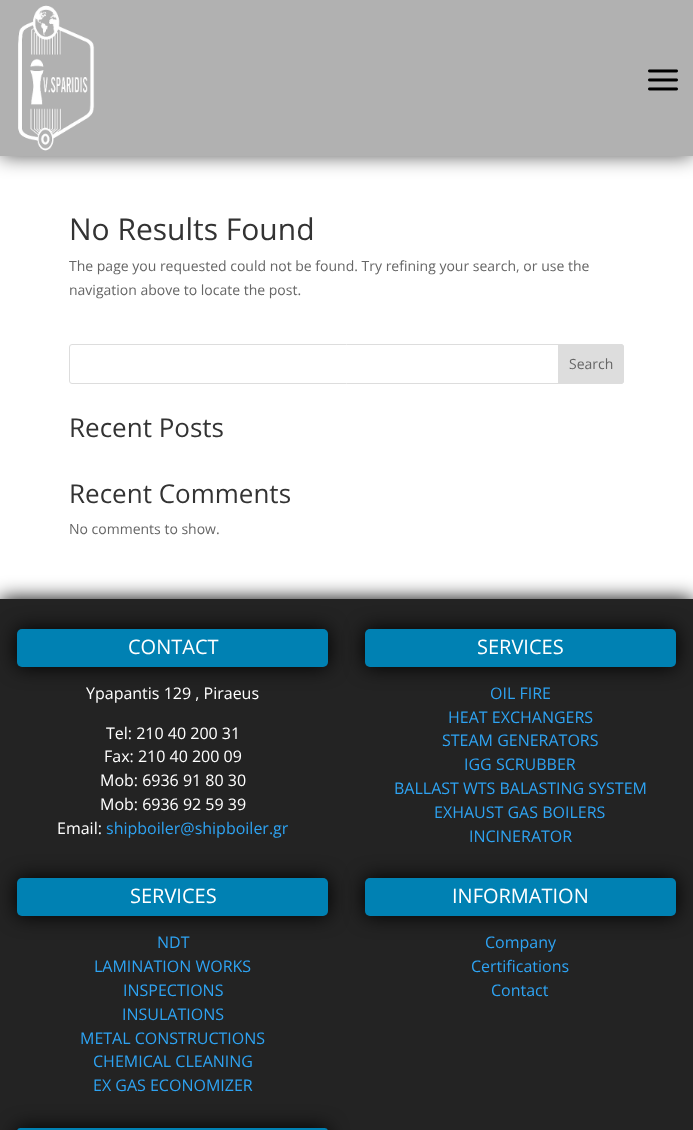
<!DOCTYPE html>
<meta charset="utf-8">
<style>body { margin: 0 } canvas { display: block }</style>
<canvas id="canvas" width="693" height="1130"></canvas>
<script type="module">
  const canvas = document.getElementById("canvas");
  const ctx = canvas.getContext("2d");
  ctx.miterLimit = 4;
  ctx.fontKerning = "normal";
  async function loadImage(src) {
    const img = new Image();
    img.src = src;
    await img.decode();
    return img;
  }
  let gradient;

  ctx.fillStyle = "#ffffff";
  ctx.fillRect(0, 0, 693, 1130);
  ctx.fillStyle = "rgba(0, 0, 0, 0.66)";
  ctx.filter = "blur(10px)";
  ctx.beginPath();
  ctx.rect(0, 0, 693, 156);
  ctx.fill();
  ctx.filter = "none";
  ctx.fillStyle = "#b1b1b1";
  ctx.fillRect(0, 0, 693, 156);
  ctx.drawImage(await loadImage("img1.png"), 18, 5, 77, 146);
  ctx.drawImage(await loadImage("img2.png"), 648, 69, 30, 22);
  ctx.font = "30px Open Sans";
  ctx.fillStyle = "#333333";
  ctx.fillText("No Results Found", 69, 240);
  ctx.font = "14px Open Sans";
  ctx.fillStyle = "#666666";
  ctx.fillText("The page you requested could not be found. Try refining your search, or use the", 69, 271);
  ctx.fillText("navigation above to locate the post.", 69, 295);
  ctx.beginPath();
  ctx.roundRect(69.5, 344.5, 554, 39, 2.5);
  ctx.strokeStyle = "#dddddd";
  ctx.stroke();
  ctx.fillStyle = "#dddddd";
  ctx.beginPath();
  ctx.roundRect(558.5, 344.5, 65, 39, [0, 2.5, 2.5, 0]);
  ctx.fill();
  ctx.stroke();
  ctx.fillStyle = "#666666";
  ctx.fillText("Search", 569, 369);
  ctx.font = "26px Open Sans";
  ctx.fillStyle = "#333333";
  ctx.fillText("Recent Posts", 69, 437);
  ctx.fillText("Recent Comments", 69, 503);
  ctx.font = "14px Open Sans";
  ctx.fillStyle = "#666666";
  ctx.fillText("No comments to show.", 69, 534);
  ctx.fillStyle = "#000000";
  ctx.filter = "blur(10px)";
  ctx.beginPath();
  ctx.rect(0, 599, 693, 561);
  ctx.fill();
  ctx.filter = "none";
  ctx.fillStyle = "#232323";
  ctx.fillRect(0, 599, 693, 531);
  ctx.fillStyle = "#000000";
  ctx.filter = "blur(10px)";
  ctx.beginPath();
  ctx.roundRect(17, 629, 311, 38, 5);
  ctx.fill();
  ctx.filter = "none";
  gradient = ctx.createRadialGradient(173, 648, 0, 173, 648, 157);
  gradient.addColorStop(1, "#0081b3");
  gradient.addColorStop(1, "rgba(0, 115, 159, 0.89)");
  gradient.addColorStop(1, "rgba(0, 115, 159, 0)");
  ctx.fillStyle = gradient;
  ctx.beginPath();
  ctx.roundRect(17, 629, 311, 38, 5);
  ctx.fill();
  ctx.font = "20px Open Sans";
  ctx.fillStyle = "#ffffff";
  ctx.fillText("CONTACT", 128, 654);
  ctx.font = "16px Open Sans";
  ctx.fillText("Ypapantis 129 , Piraeus", 86, 699);
  ctx.fillText("Tel: 210 40 200 31", 106, 739);
  ctx.fillText("Fax: 210 40 200 09", 104, 762);
  ctx.fillText("Mob: 6936 91 80 30", 100, 786);
  ctx.fillText("Mob: 6936 92 59 39", 100, 810);
  ctx.fillText("Email:", 57, 834);
  ctx.fillStyle = "#2ea3f2";
  ctx.fillText("shipboiler@shipboiler.gr", 106, 834);
  ctx.fillStyle = "#000000";
  ctx.filter = "blur(10px)";
  ctx.beginPath();
  ctx.roundRect(365, 629, 311, 38, 5);
  ctx.fill();
  ctx.filter = "none";
  gradient = ctx.createRadialGradient(521, 648, 0, 521, 648, 157);
  gradient.addColorStop(1, "#0081b3");
  gradient.addColorStop(1, "rgba(0, 115, 159, 0.89)");
  gradient.addColorStop(1, "rgba(0, 115, 159, 0)");
  ctx.fillStyle = gradient;
  ctx.beginPath();
  ctx.roundRect(365, 629, 311, 38, 5);
  ctx.fill();
  ctx.font = "20px Open Sans";
  ctx.fillStyle = "#ffffff";
  ctx.fillText("SERVICES", 477, 654);
  ctx.font = "16px Open Sans";
  ctx.fillStyle = "#2ea3f2";
  ctx.fillText("OIL FIRE", 490, 699);
  ctx.fillText("HEAT EXCHANGERS", 448, 723);
  ctx.fillText("STEAM GENERATORS", 442, 746);
  ctx.fillText("IGG SCRUBBER", 464, 770);
  ctx.fillText("BALLAST WTS BALASTING SYSTEM", 394, 794);
  ctx.fillText("EXHAUST GAS BOILERS", 434, 818);
  ctx.fillText("INCINERATOR", 469, 842);
  ctx.fillStyle = "#000000";
  ctx.filter = "blur(10px)";
  ctx.beginPath();
  ctx.roundRect(17, 878, 311, 38, 5);
  ctx.fill();
  ctx.filter = "none";
  gradient = ctx.createRadialGradient(173, 897, 0, 173, 897, 157);
  gradient.addColorStop(1, "#0081b3");
  gradient.addColorStop(1, "rgba(0, 115, 159, 0.89)");
  gradient.addColorStop(1, "rgba(0, 115, 159, 0)");
  ctx.fillStyle = gradient;
  ctx.beginPath();
  ctx.roundRect(17, 878, 311, 38, 5);
  ctx.fill();
  ctx.font = "20px Open Sans";
  ctx.fillStyle = "#ffffff";
  ctx.fillText("SERVICES", 130, 903);
  ctx.font = "16px Open Sans";
  ctx.fillStyle = "#2ea3f2";
  ctx.fillText("NDT", 157, 948);
  ctx.fillText("LAMINATION WORKS", 94, 972);
  ctx.fillText("INSPECTIONS", 123, 996);
  ctx.fillText("INSULATIONS", 122, 1020);
  ctx.fillText("METAL CONSTRUCTIONS", 80, 1044);
  ctx.fillText("CHEMICAL CLEANING", 93, 1067);
  ctx.fillText("EX GAS ECONOMIZER", 93, 1091);
  ctx.fillStyle = "#000000";
  ctx.filter = "blur(10px)";
  ctx.beginPath();
  ctx.roundRect(365, 878, 311, 38, 5);
  ctx.fill();
  ctx.filter = "none";
  gradient = ctx.createRadialGradient(521, 897, 0, 521, 897, 157);
  gradient.addColorStop(1, "#0081b3");
  gradient.addColorStop(1, "rgba(0, 115, 159, 0.89)");
  gradient.addColorStop(1, "rgba(0, 115, 159, 0)");
  ctx.fillStyle = gradient;
  ctx.beginPath();
  ctx.roundRect(365, 878, 311, 38, 5);
  ctx.fill();
  ctx.font = "20px Open Sans";
  ctx.fillStyle = "#ffffff";
  ctx.fillText("INFORMATION", 452, 903);
  ctx.font = "16px Open Sans";
  ctx.fillStyle = "#2ea3f2";
  ctx.fillText("Company", 485, 948);
  ctx.fillText("Certifications", 471, 972);
  ctx.fillText("Contact", 491, 996);
  ctx.fillStyle = "#000000";
  ctx.filter = "blur(10px)";
  ctx.beginPath();
  ctx.roundRect(17, 1128, 311, 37, 5);
  ctx.fill();
  ctx.filter = "none";
  gradient = ctx.createRadialGradient(173, 1147, 0, 173, 1147, 157);
  gradient.addColorStop(1, "#0081b3");
  gradient.addColorStop(1, "rgba(0, 115, 159, 0.89)");
  gradient.addColorStop(1, "rgba(0, 115, 159, 0)");
  ctx.fillStyle = gradient;
  ctx.beginPath();
  ctx.roundRect(17, 1128, 311, 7, 5);
  ctx.fill();
</script>
